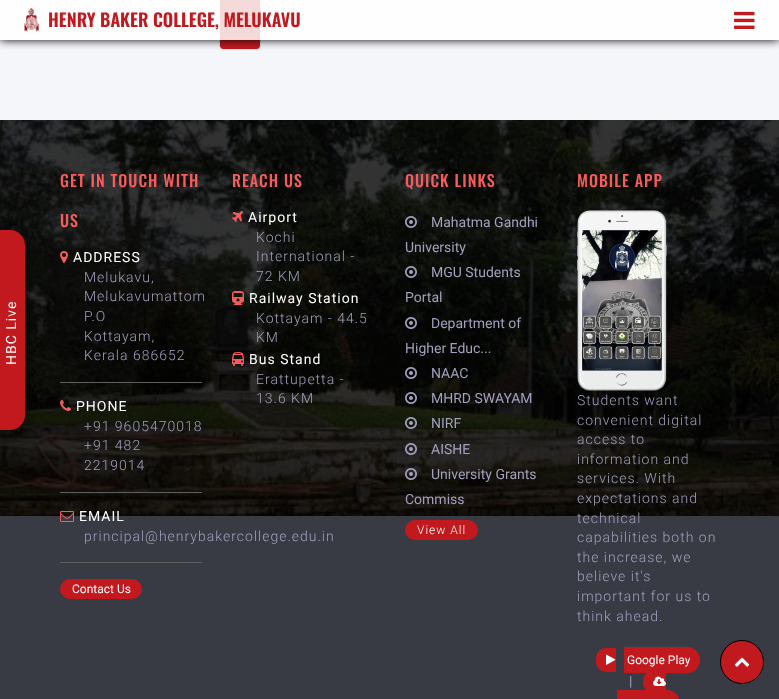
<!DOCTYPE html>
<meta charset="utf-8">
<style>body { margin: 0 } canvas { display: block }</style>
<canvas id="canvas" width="779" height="699"></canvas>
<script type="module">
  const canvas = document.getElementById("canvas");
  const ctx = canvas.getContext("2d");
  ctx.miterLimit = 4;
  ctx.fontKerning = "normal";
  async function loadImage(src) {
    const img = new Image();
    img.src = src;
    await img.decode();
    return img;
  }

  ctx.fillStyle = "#383b44";
  ctx.fillRect(0, 0, 779, 699);
  ctx.fillStyle = "#f5f6fa";
  ctx.fillRect(0, 0, 779, 120);
  ctx.fillStyle = "#ffffff";
  ctx.beginPath();
  ctx.roundRect(219, -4, 42, 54, 4);
  ctx.fill();
  ctx.beginPath();
  ctx.roundRect(219.5, -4.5, 41, 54, 3.5);
  ctx.strokeStyle = "rgba(0, 0, 0, 0.12)";
  ctx.stroke();
  ctx.fillStyle = "#c2191e";
  ctx.beginPath();
  ctx.moveTo(220, -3);
  ctx.lineTo(260, -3);
  ctx.lineTo(260, 46);
  ctx.bezierCurveTo(260, 47.5, 258.5, 49, 257, 49);
  ctx.lineTo(223, 49);
  ctx.bezierCurveTo(221.5, 49, 220, 47.5, 220, 46);
  ctx.closePath();
  ctx.fill();
  ctx.save();
  ctx.beginPath();
  ctx.rect(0, 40, 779, 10);
  ctx.clip();
  ctx.fillStyle = "#000000";
  ctx.filter = "blur(5px)";
  ctx.beginPath();
  ctx.rect(0, 0, 779, 40);
  ctx.fill();
  ctx.filter = "none";
  ctx.restore();
  ctx.fillStyle = "rgba(255, 255, 255, 0.84)";
  ctx.fillRect(0, 0, 779, 40);
  ctx.drawImage(await loadImage("img1.png"), 24, 8, 15, 25);
  ctx.font = "600 18px Oswald";
  ctx.fillStyle = "#c2191e";
  ctx.fillText("HENRY BAKER COLLEGE, MELUKAVU", 48, 27);
  ctx.drawImage(await loadImage("img2.png"), 734, 11, 21, 18);
  ctx.drawImage(await loadImage("img3.png"), 0, 120, 779, 396);
  ctx.fillStyle = "rgba(0, 0, 0, 0.5)";
  ctx.filter = "blur(7.5px)";
  ctx.beginPath();
  ctx.roundRect(0, 235, 25, 200, 15);
  ctx.fill();
  ctx.filter = "none";
  ctx.fillStyle = "#c2191e";
  ctx.beginPath();
  ctx.roundRect(0, 230, 25, 200, [0, 15, 15, 0]);
  ctx.fill();
  ctx.letterSpacing = "1px";
  ctx.font = "14px Roboto";
  ctx.fillStyle = "#ffffff";
  ctx.save();
  ctx.translate(16, 365);
  ctx.rotate(-90 * Math.PI / 180);
  ctx.fillText("HBC Live", 0, 0);
  ctx.restore();
  ctx.font = "500 16px Oswald";
  ctx.fillStyle = "#f55c5c";
  ctx.fillText("GET IN TOUCH WITH", 60, 187);
  ctx.fillText("US", 60, 227);
  ctx.drawImage(await loadImage("img4.png"), 60, 251, 8, 12);
  ctx.font = "14px Roboto";
  ctx.fillStyle = "#ffffff";
  ctx.fillText("ADDRESS", 73, 262);
  ctx.font = "300 14px Roboto";
  ctx.fillStyle = "#a2a0bd";
  ctx.fillText("Melukavu,", 84, 282);
  ctx.fillText("Melukavumattom", 84, 301);
  ctx.fillText("P.O", 84, 321);
  ctx.fillText("Kottayam,", 84, 341);
  ctx.fillText("Kerala 686652", 84, 360);
  ctx.fillStyle = "#5f5f5f";
  ctx.fillRect(60, 382, 142, 1);
  ctx.drawImage(await loadImage("img5.png"), 60, 400, 11, 11);
  ctx.font = "14px Roboto";
  ctx.fillStyle = "#ffffff";
  ctx.fillText("PHONE", 76, 411);
  ctx.font = "300 14px Roboto";
  ctx.fillStyle = "#a2a0bd";
  ctx.fillText("+91 9605470018", 84, 431);
  ctx.fillText("+91 482", 84, 450);
  ctx.fillText("2219014", 84, 470);
  ctx.fillStyle = "#5f5f5f";
  ctx.fillRect(60, 492, 142, 1);
  ctx.drawImage(await loadImage("img6.png"), 60, 511, 14, 11);
  ctx.font = "14px Roboto";
  ctx.fillStyle = "#ffffff";
  ctx.fillText("EMAIL", 79, 521);
  ctx.font = "300 14px Roboto";
  ctx.fillStyle = "#a2a0bd";
  ctx.fillText("principal@henrybakercollege.edu.in", 84, 541);
  ctx.fillStyle = "#5f5f5f";
  ctx.fillRect(60, 562, 142, 1);
  ctx.fillStyle = "#c2191e";
  ctx.beginPath();
  ctx.roundRect(60, 579, 82, 20, 10);
  ctx.fill();
  ctx.letterSpacing = "0px";
  ctx.font = "12px Roboto";
  ctx.fillStyle = "#ffffff";
  ctx.fillText("Contact Us", 72, 593);
  ctx.letterSpacing = "1px";
  ctx.font = "500 16px Oswald";
  ctx.fillStyle = "#f55c5c";
  ctx.fillText("REACH US", 232, 187);
  ctx.drawImage(await loadImage("img7.png"), 232, 211, 11, 11);
  ctx.font = "14px Roboto";
  ctx.fillStyle = "#ffffff";
  ctx.fillText("Airport", 248, 222);
  ctx.font = "300 14px Roboto";
  ctx.fillStyle = "#a2a0bd";
  ctx.fillText("Kochi", 256, 242);
  ctx.fillText("International -", 256, 261);
  ctx.fillText("72 KM", 256, 281);
  ctx.drawImage(await loadImage("img8.png"), 232, 291, 12, 14);
  ctx.font = "14px Roboto";
  ctx.fillStyle = "#ffffff";
  ctx.fillText("Railway Station", 249, 303);
  ctx.font = "300 14px Roboto";
  ctx.fillStyle = "#a2a0bd";
  ctx.fillText("Kottayam - 44.5", 256, 323);
  ctx.fillText("KM", 256, 342);
  ctx.drawImage(await loadImage("img9.png"), 232, 352, 12, 14);
  ctx.font = "14px Roboto";
  ctx.fillStyle = "#ffffff";
  ctx.fillText("Bus Stand", 249, 364);
  ctx.font = "300 14px Roboto";
  ctx.fillStyle = "#a2a0bd";
  ctx.fillText("Erattupetta -", 256, 384);
  ctx.fillText("13.6 KM", 256, 403);
  ctx.font = "500 16px Oswald";
  ctx.fillStyle = "#f55c5c";
  ctx.fillText("QUICK LINKS", 405, 187);
  ctx.drawImage(await loadImage("img10.png"), 405, 216, 12, 12);
  ctx.letterSpacing = "0px";
  ctx.font = "14px Roboto";
  ctx.fillStyle = "#a2a0bd";
  ctx.fillText("Mahatma Gandhi", 431, 227);
  ctx.fillText("University", 405, 252);
  ctx.drawImage(await loadImage("img11.png"), 405, 266, 12, 12);
  ctx.fillText("MGU Students", 431, 277);
  ctx.fillText("Portal", 405, 302);
  ctx.drawImage(await loadImage("img12.png"), 405, 317, 12, 12);
  ctx.fillText("Department of", 431, 328);
  ctx.fillText("Higher Educ...", 405, 353);
  ctx.drawImage(await loadImage("img13.png"), 405, 367, 12, 12);
  ctx.fillText("NAAC", 431, 378);
  ctx.drawImage(await loadImage("img14.png"), 405, 392, 12, 12);
  ctx.fillText("MHRD SWAYAM", 431, 403);
  ctx.drawImage(await loadImage("img15.png"), 405, 417, 12, 12);
  ctx.fillText("NIRF", 431, 428);
  ctx.drawImage(await loadImage("img16.png"), 405, 443, 12, 12);
  ctx.fillText("AISHE", 431, 454);
  ctx.drawImage(await loadImage("img17.png"), 405, 468, 12, 12);
  ctx.fillText("University Grants", 431, 479);
  ctx.fillText("Commiss", 405, 504);
  ctx.fillStyle = "#c2191e";
  ctx.beginPath();
  ctx.roundRect(405, 520, 73, 20, 10);
  ctx.fill();
  ctx.letterSpacing = "1px";
  ctx.font = "300 12px Roboto";
  ctx.fillStyle = "#ffffff";
  ctx.fillText("View All", 417, 534);
  ctx.font = "500 16px Oswald";
  ctx.fillStyle = "#f55c5c";
  ctx.fillText("MOBILE APP", 577, 187);
  ctx.drawImage(await loadImage("img18.png"), 577, 210, 90, 181);
  ctx.font = "300 14px Roboto";
  ctx.fillStyle = "#a2a0bd";
  ctx.fillText("Students want", 577, 405);
  ctx.fillText("convenient digital", 577, 425);
  ctx.fillText("access to", 577, 444);
  ctx.fillText("information and", 577, 464);
  ctx.fillText("services. With", 577, 483);
  ctx.fillText("expectations and", 577, 503);
  ctx.fillText("technical", 577, 523);
  ctx.fillText("capabilities both on", 577, 542);
  ctx.fillText("the increase, we", 577, 562);
  ctx.fillText("believe it's", 577, 581);
  ctx.fillText("important for us to", 577, 601);
  ctx.fillText("think ahead.", 577, 621);
  ctx.fillStyle = "#c2191e";
  ctx.beginPath();
  ctx.roundRect(596, 648, 20, 24, [10, 0, 0, 10]);
  ctx.fill();
  ctx.beginPath();
  ctx.roundRect(624, 647, 76, 26, [0, 13, 13, 0]);
  ctx.fill();
  ctx.drawImage(await loadImage("img19.png"), 606, 654, 10, 11);
  ctx.letterSpacing = "0px";
  ctx.font = "12px Roboto";
  ctx.fillStyle = "#ffffff";
  ctx.fillText("Google Play", 627, 664);
  ctx.fillStyle = "#c2191e";
  ctx.beginPath();
  ctx.roundRect(643, 670, 23, 24, [11.5, 0, 0, 11.5]);
  ctx.fill();
  ctx.beginPath();
  ctx.moveTo(617, 690);
  ctx.lineTo(667, 690);
  ctx.bezierCurveTo(674, 690, 680, 696, 680, 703);
  ctx.lineTo(680, 699);
  ctx.bezierCurveTo(680, 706, 674, 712, 667, 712);
  ctx.lineTo(617, 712);
  ctx.closePath();
  ctx.fill();
  ctx.drawImage(await loadImage("img20.png"), 653, 676, 13, 10);
  ctx.font = "14px Roboto";
  ctx.fillStyle = "#a2a0bd";
  ctx.fillText("|", 629, 686);
  ctx.fillStyle = "#c2191e";
  ctx.beginPath();
  ctx.arc(742, 662, 21.5, 0, Math.PI * 2);
  ctx.fill();
  ctx.strokeStyle = "#000000";
  ctx.stroke();
  ctx.drawImage(await loadImage("img21.png"), 734, 657, 16, 10);
</script>
